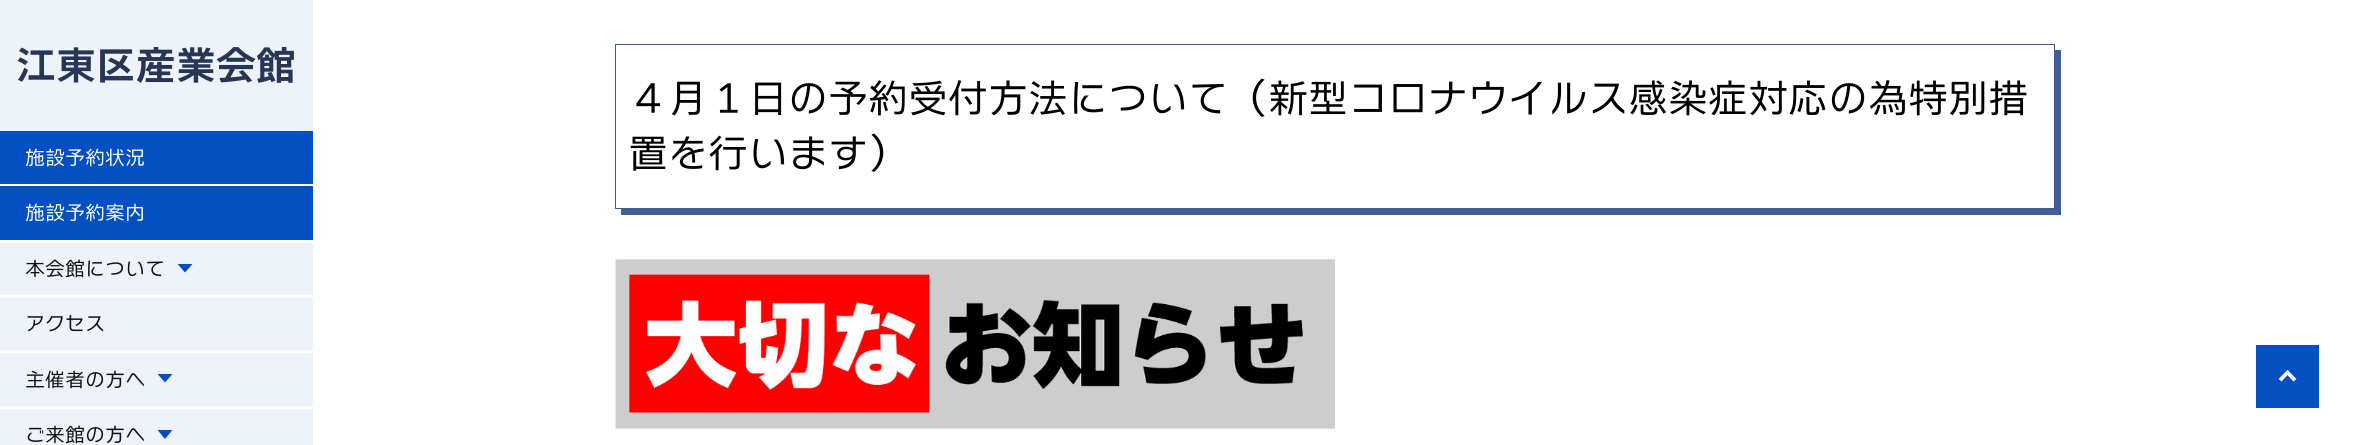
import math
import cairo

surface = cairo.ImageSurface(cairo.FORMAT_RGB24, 2356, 445)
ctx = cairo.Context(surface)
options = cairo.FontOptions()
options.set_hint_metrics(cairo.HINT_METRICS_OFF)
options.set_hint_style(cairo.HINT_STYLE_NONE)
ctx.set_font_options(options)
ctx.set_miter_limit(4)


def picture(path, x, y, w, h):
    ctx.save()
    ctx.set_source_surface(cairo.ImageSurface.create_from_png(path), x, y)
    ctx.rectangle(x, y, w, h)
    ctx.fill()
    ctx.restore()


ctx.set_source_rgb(1, 1, 1)
ctx.paint()
ctx.set_source_rgb(0.933, 0.953, 0.98)
ctx.rectangle(0, 0, 313, 445)
ctx.fill()
ctx.select_font_face("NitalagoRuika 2 Thin")
ctx.set_font_size(40)
ctx.set_source_rgb(0.157, 0.212, 0.333)
ctx.move_to(16, 80)
ctx.show_text("江東区産業会館")
ctx.set_source_rgb(0.016, 0.31, 0.757)
ctx.rectangle(0, 131, 313, 53)
ctx.fill()
ctx.set_source_rgb(1, 1, 1)
ctx.rectangle(0, 184, 313, 2)
ctx.fill()
ctx.select_font_face("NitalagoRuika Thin")
ctx.set_font_size(20)
ctx.move_to(25, 165)
ctx.show_text("施設予約状況")
ctx.set_source_rgb(0.016, 0.31, 0.757)
ctx.rectangle(0, 186, 313, 54)
ctx.fill()
ctx.set_source_rgb(1, 1, 1)
ctx.rectangle(0, 240, 313, 3)
ctx.fill()
ctx.move_to(25, 220)
ctx.show_text("施設予約案内")
ctx.rectangle(0, 295, 313, 3)
ctx.fill()
ctx.set_source_rgb(0.067, 0.067, 0.067)
ctx.move_to(25, 276)
ctx.show_text("本会館について")
ctx.set_source_rgb(0.016, 0.31, 0.757)
ctx.new_path()
ctx.move_to(177.5, 264)
ctx.line_to(192.5, 264)
ctx.line_to(185, 272.5)
ctx.close_path()
ctx.fill()
ctx.set_source_rgb(1, 1, 1)
ctx.rectangle(0, 350, 313, 3)
ctx.fill()
ctx.set_source_rgb(0.067, 0.067, 0.067)
ctx.move_to(25, 331)
ctx.show_text("アクセス")
ctx.set_source_rgb(1, 1, 1)
ctx.rectangle(0, 406, 313, 3)
ctx.fill()
ctx.set_source_rgb(0.067, 0.067, 0.067)
ctx.move_to(25, 387)
ctx.show_text("主催者の方へ")
ctx.set_source_rgb(0.016, 0.31, 0.757)
ctx.new_path()
ctx.move_to(157.5, 374)
ctx.line_to(172.5, 374)
ctx.line_to(165, 382.5)
ctx.close_path()
ctx.fill()
ctx.set_source_rgb(0.067, 0.067, 0.067)
ctx.move_to(25, 442)
ctx.show_text("ご来館の方へ")
ctx.set_source_rgb(0.016, 0.31, 0.757)
ctx.new_path()
ctx.move_to(157.5, 430)
ctx.line_to(172.5, 430)
ctx.line_to(165, 439)
ctx.close_path()
ctx.fill()
ctx.set_source_rgb(0.255, 0.369, 0.576)
ctx.new_path()
ctx.move_to(621, 209)
ctx.line_to(621, 215)
ctx.line_to(2061, 215)
ctx.line_to(2061, 50)
ctx.line_to(2055, 50)
ctx.line_to(2055, 209)
ctx.close_path()
ctx.fill()
ctx.rectangle(615.5, 44.5, 1439, 164)
ctx.set_line_width(1)
ctx.stroke()
ctx.set_font_size(40)
ctx.set_source_rgb(0, 0, 0)
ctx.move_to(628, 113)
ctx.show_text("４月１日の予約受付方法について（新型コロナウイルス感染症対応の為特別措")
ctx.move_to(628, 168)
ctx.show_text("置を行います）")
picture("img1.png", 615, 258, 720, 171)
ctx.set_source_rgb(0.016, 0.31, 0.757)
ctx.rectangle(2256, 345, 63, 63)
ctx.fill()
ctx.set_source_rgb(1, 1, 1)
ctx.new_path()
ctx.move_to(2278.5, 379)
ctx.line_to(2287.5, 370)
ctx.line_to(2290, 372.5)
ctx.line_to(2281.5, 381.5)
ctx.close_path()
ctx.fill()
ctx.new_path()
ctx.move_to(2285, 372.5)
ctx.line_to(2287.5, 370)
ctx.line_to(2296.5, 379)
ctx.line_to(2293.5, 381.5)
ctx.close_path()
ctx.fill()
surface.write_to_png("page.png")
